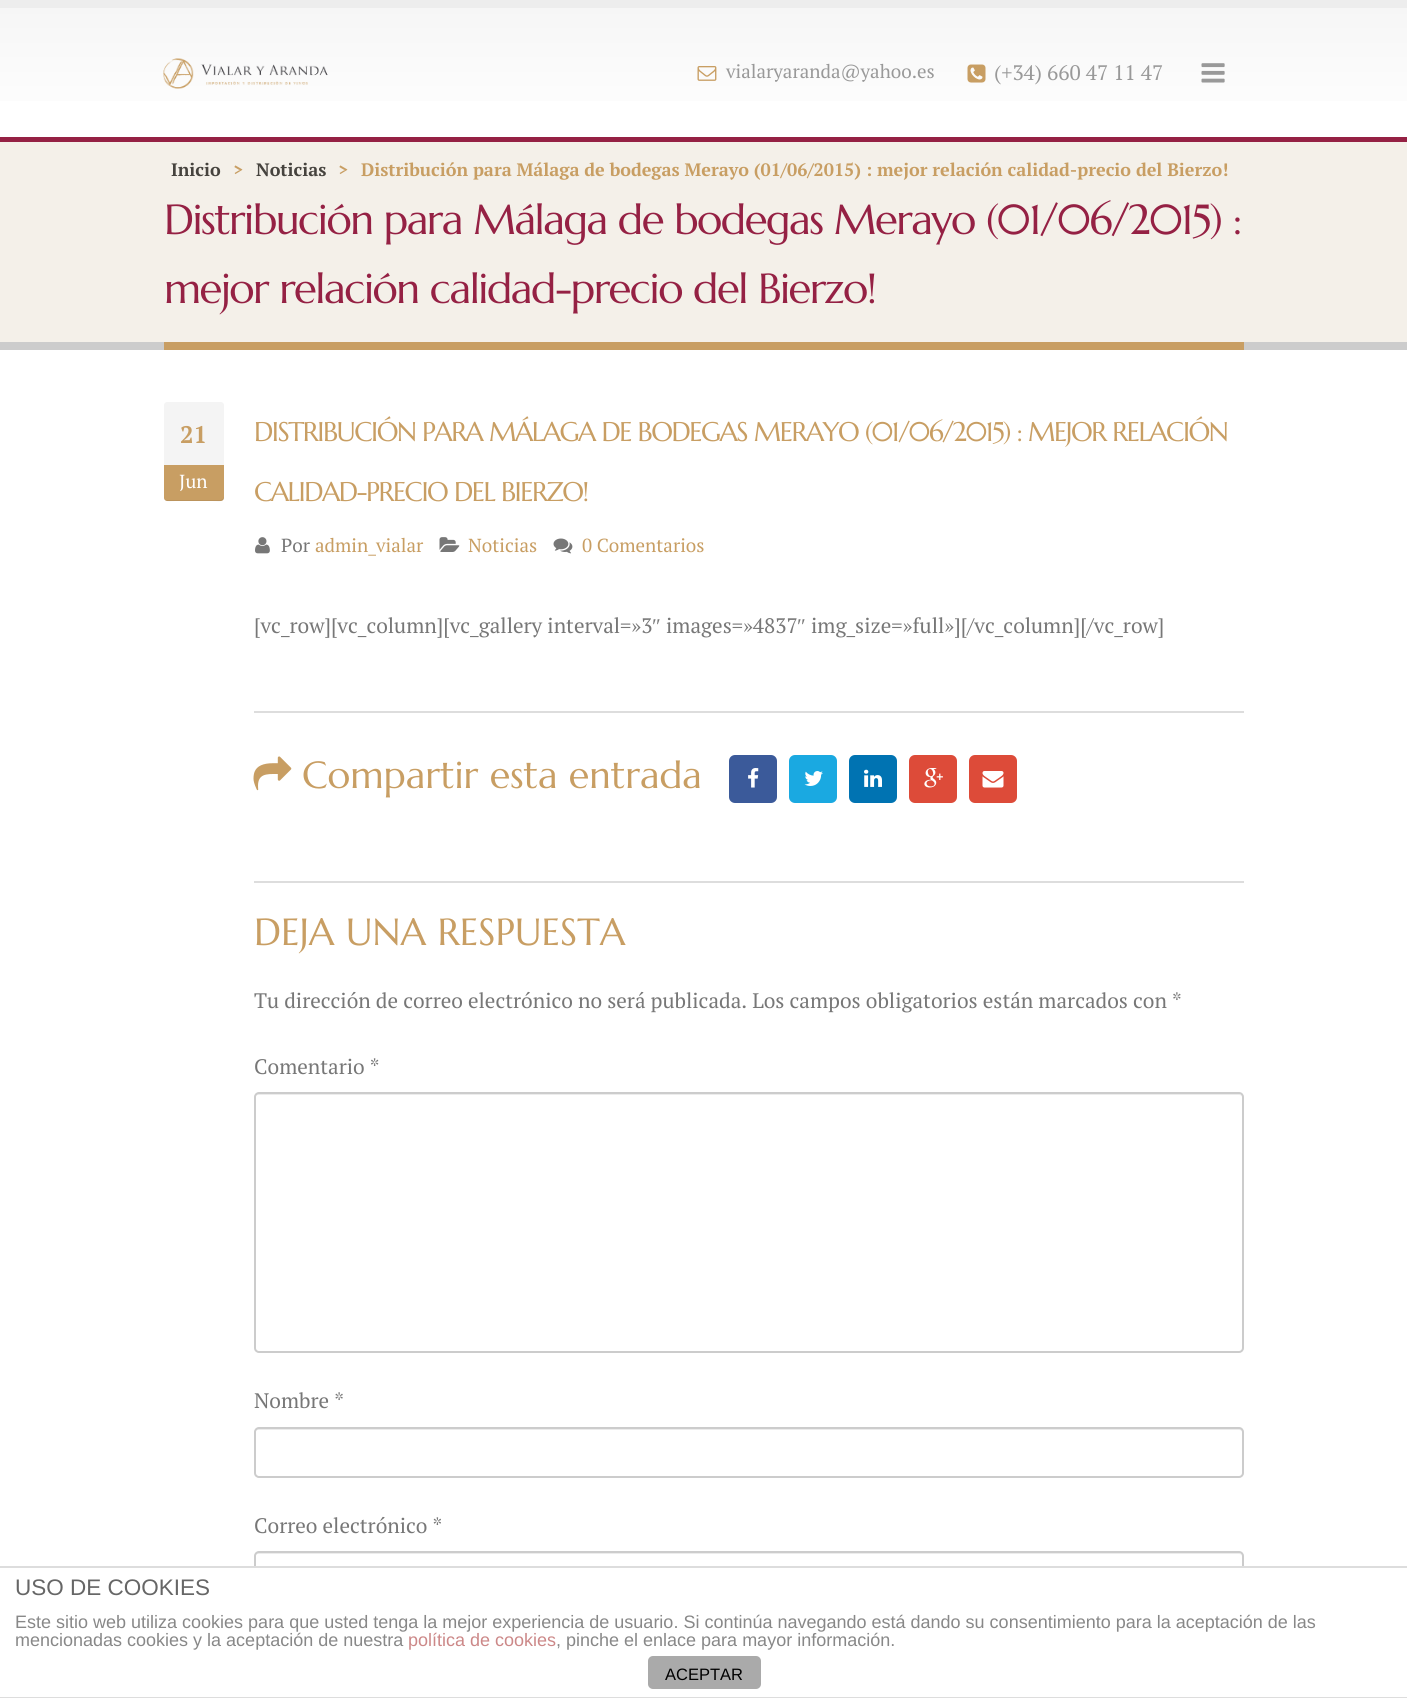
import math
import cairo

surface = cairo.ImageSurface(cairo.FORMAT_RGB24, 1407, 1698)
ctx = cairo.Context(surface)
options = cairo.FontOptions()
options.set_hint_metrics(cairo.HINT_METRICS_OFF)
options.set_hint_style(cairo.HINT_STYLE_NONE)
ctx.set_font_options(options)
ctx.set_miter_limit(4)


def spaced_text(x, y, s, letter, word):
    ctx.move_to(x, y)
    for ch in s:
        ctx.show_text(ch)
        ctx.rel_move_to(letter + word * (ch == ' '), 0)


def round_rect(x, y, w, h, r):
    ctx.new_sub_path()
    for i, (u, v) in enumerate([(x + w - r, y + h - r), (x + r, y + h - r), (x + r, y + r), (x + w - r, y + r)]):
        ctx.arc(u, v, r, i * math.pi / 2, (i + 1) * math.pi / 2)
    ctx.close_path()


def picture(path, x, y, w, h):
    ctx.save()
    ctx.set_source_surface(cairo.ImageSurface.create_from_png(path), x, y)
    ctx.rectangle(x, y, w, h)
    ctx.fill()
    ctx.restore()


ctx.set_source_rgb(1, 1, 1)
ctx.paint()
gradient = cairo.LinearGradient(704, 7.5, 704, 137)
gradient.add_color_stop_rgba(0, 0.965, 0.965, 0.965, 1)
gradient.add_color_stop_rgba(1, 1, 1, 1, 1)
ctx.set_source(gradient)
ctx.rectangle(0, 8, 1407, 93)
ctx.fill()
ctx.set_source_rgb(0.929, 0.929, 0.929)
ctx.rectangle(0, 0, 1407, 8)
ctx.fill()
picture("img1.png", 163, 58, 165, 31)
picture("img2.png", 697, 66, 20, 15)
ctx.select_font_face("PT Serif")
ctx.set_font_size(18.9)
ctx.set_source_rgb(0.6, 0.6, 0.6)
ctx.move_to(726, 78)
ctx.show_text("vialaryaranda@yahoo.es")
picture("img3.png", 967, 64, 19, 19)
ctx.set_font_size(21)
ctx.move_to(994, 80)
ctx.show_text("(+34) 660 47 11 47")
picture("img4.png", 1201, 63, 24, 20)
ctx.set_source_rgb(0.957, 0.941, 0.914)
ctx.rectangle(0, 142, 1407, 200)
ctx.fill()
ctx.set_source_rgb(0.584, 0.129, 0.267)
ctx.rectangle(0, 137, 1407, 5)
ctx.fill()
ctx.set_source_rgb(0.8, 0.8, 0.8)
ctx.rectangle(0, 342, 1407, 8)
ctx.fill()
ctx.select_font_face("PT Serif", cairo.FONT_SLANT_NORMAL, cairo.FONT_WEIGHT_BOLD)
ctx.set_font_size(18)
ctx.set_source_rgb(0.275, 0.263, 0.243)
ctx.move_to(171, 176)
ctx.show_text("Inicio")
ctx.set_source_rgb(0.784, 0.62, 0.388)
ctx.move_to(233, 176)
ctx.show_text(">")
ctx.set_source_rgb(0.275, 0.263, 0.243)
ctx.move_to(256, 176)
ctx.show_text("Noticias")
ctx.set_source_rgb(0.784, 0.62, 0.388)
ctx.move_to(338, 176)
ctx.show_text(">")
ctx.move_to(361, 176)
ctx.show_text("Distribución para Málaga de bodegas Merayo (01/06/2015) : mejor relación calidad-precio del Bierzo!")
ctx.rectangle(164, 342, 1080, 8)
ctx.fill()
ctx.select_font_face("Marcellus")
ctx.set_font_size(42)
ctx.set_source_rgb(0.584, 0.129, 0.267)
spaced_text(164, 234, "Distribución para Málaga de bodegas Merayo (01/06/2015) :", -1.5, 0)
spaced_text(164, 303, "mejor relación calidad-precio del Bierzo!", -1.5, 0)
ctx.set_source_rgb(0.957, 0.957, 0.957)
ctx.new_path()
ctx.move_to(167, 402)
ctx.line_to(221, 402)
ctx.curve_to(222.5, 402, 224, 403.5, 224, 405)
ctx.line_to(224, 465)
ctx.line_to(164, 465)
ctx.line_to(164, 405)
ctx.curve_to(164, 403.5, 165.5, 402, 167, 402)
ctx.close_path()
ctx.fill()
ctx.select_font_face("PT Serif", cairo.FONT_SLANT_NORMAL, cairo.FONT_WEIGHT_BOLD)
ctx.set_font_size(24)
ctx.set_source_rgb(0.784, 0.62, 0.388)
ctx.move_to(180, 443)
ctx.show_text("21")
ctx.new_path()
ctx.move_to(164, 465)
ctx.line_to(224, 465)
ctx.line_to(224, 498)
ctx.curve_to(224, 499.5, 222.5, 501, 221, 501)
ctx.line_to(167, 501)
ctx.curve_to(165.5, 501, 164, 499.5, 164, 498)
ctx.close_path()
ctx.fill()
ctx.set_source_rgba(0, 0, 0, 0.07)
ctx.new_path()
ctx.move_to(164, 496)
ctx.curve_to(164, 503, 169, 501, 176, 501)
ctx.line_to(212, 501)
ctx.curve_to(219, 501, 224, 503, 224, 496)
ctx.curve_to(224, 498, 222, 500, 220, 500)
ctx.line_to(166, 500)
ctx.curve_to(165, 500, 164, 498, 164, 496)
ctx.close_path()
ctx.fill()
ctx.select_font_face("PT Serif")
ctx.set_font_size(18.9)
ctx.set_source_rgb(1, 1, 1)
ctx.move_to(179, 488)
ctx.show_text("Jun")
ctx.select_font_face("Marcellus")
ctx.set_font_size(27)
ctx.set_source_rgb(0.784, 0.62, 0.388)
spaced_text(254, 441, "DISTRIBUCIÓN PARA MÁLAGA DE BODEGAS MERAYO (01/06/2015) : MEJOR RELACIÓN", -1.5, 0)
spaced_text(254, 501, "CALIDAD-PRECIO DEL BIERZO!", -1.5, 0)
picture("img5.png", 255, 537, 15, 17)
ctx.select_font_face("PT Serif")
ctx.set_font_size(18.9)
ctx.set_source_rgb(0.467, 0.467, 0.467)
ctx.move_to(281, 552)
ctx.show_text("Por")
ctx.set_source_rgb(0.784, 0.62, 0.388)
ctx.move_to(315, 552)
ctx.show_text("admin_vialar")
picture("img6.png", 439, 537, 21, 15)
ctx.move_to(468, 552)
ctx.show_text("Noticias")
picture("img7.png", 553, 538, 20, 16)
ctx.move_to(582, 552)
ctx.show_text("0 Comentarios")
ctx.set_font_size(21)
ctx.set_source_rgb(0.467, 0.467, 0.467)
ctx.move_to(254, 633)
ctx.show_text("[vc_row][vc_column][vc_gallery interval=»3")
ctx.select_font_face("Liberation Serif")
ctx.move_to(652, 633)
ctx.show_text("″")
ctx.select_font_face("PT Serif")
ctx.move_to(666, 633)
ctx.show_text("images=»4837")
ctx.select_font_face("Liberation Serif")
ctx.move_to(797, 633)
ctx.show_text("″")
ctx.select_font_face("PT Serif")
ctx.move_to(811, 633)
ctx.show_text("img_size=»full»][/vc_column][/vc_row]")
ctx.set_source_rgb(0.867, 0.867, 0.867)
ctx.rectangle(254, 711, 990, 2)
ctx.fill()
picture("img8.png", 253, 756, 39, 35)
ctx.select_font_face("Marcellus")
ctx.set_font_size(37.75)
ctx.set_source_rgb(0.784, 0.62, 0.388)
ctx.move_to(302, 788)
ctx.show_text("Compartir esta entrada")
ctx.set_source_rgb(0.231, 0.353, 0.604)
round_rect(729, 755, 48, 48, 6)
ctx.fill()
picture("img9.png", 748, 768, 11, 20)
ctx.set_source_rgb(0.102, 0.663, 0.882)
round_rect(789, 755, 48, 48, 6)
ctx.fill()
picture("img10.png", 804, 771, 19, 15)
ctx.set_source_rgb(0, 0.451, 0.698)
round_rect(849, 755, 48, 48, 6)
ctx.fill()
picture("img11.png", 864, 769, 18, 18)
ctx.set_source_rgb(0.867, 0.294, 0.224)
round_rect(909, 755, 48, 48, 6)
ctx.fill()
picture("img12.png", 924, 768, 19, 20)
round_rect(969, 755, 48, 48, 6)
ctx.fill()
picture("img13.png", 982, 771, 22, 17)
ctx.set_source_rgb(0.867, 0.867, 0.867)
ctx.rectangle(254, 881, 990, 2)
ctx.fill()
ctx.set_source_rgb(0.784, 0.62, 0.388)
ctx.move_to(254, 945)
ctx.show_text("DEJA UNA RESPUESTA")
ctx.select_font_face("PT Serif")
ctx.set_font_size(21)
ctx.set_source_rgb(0.467, 0.467, 0.467)
ctx.move_to(254, 1008)
ctx.show_text("Tu dirección de correo electrónico no será publicada. Los campos obligatorios están marcados con *")
ctx.move_to(254, 1074)
ctx.show_text("Comentario *")
ctx.set_source_rgb(0.925, 0.925, 0.925)
ctx.new_path()
ctx.move_to(258, 1095)
ctx.line_to(1239, 1095)
ctx.curve_to(1241, 1095, 1242, 1096, 1242, 1098)
ctx.curve_to(1242, 1096, 1241, 1094, 1239, 1094)
ctx.line_to(258, 1094)
ctx.curve_to(256, 1094, 255, 1096, 255, 1098)
ctx.curve_to(255, 1096, 256, 1095, 258, 1095)
ctx.close_path()
ctx.fill()
round_rect(255, 1093, 988, 259, 4)
ctx.set_source_rgb(0.8, 0.8, 0.8)
ctx.stroke()
ctx.set_source_rgb(0.467, 0.467, 0.467)
ctx.move_to(254, 1408)
ctx.show_text("Nombre *")
ctx.set_source_rgb(0.925, 0.925, 0.925)
ctx.new_path()
ctx.move_to(258, 1430)
ctx.line_to(1239, 1430)
ctx.curve_to(1241, 1430, 1242, 1431, 1242, 1432)
ctx.curve_to(1242, 1430, 1241, 1428, 1239, 1428)
ctx.line_to(258, 1428)
ctx.curve_to(256, 1428, 255, 1430, 255, 1432)
ctx.curve_to(255, 1431, 256, 1430, 258, 1430)
ctx.close_path()
ctx.fill()
round_rect(255, 1428, 988, 49, 4)
ctx.set_source_rgb(0.8, 0.8, 0.8)
ctx.stroke()
ctx.set_source_rgb(0.467, 0.467, 0.467)
ctx.move_to(254, 1533)
ctx.show_text("Correo electrónico *")
ctx.set_source_rgb(0.925, 0.925, 0.925)
ctx.new_path()
ctx.move_to(258, 1554)
ctx.line_to(1239, 1554)
ctx.curve_to(1241, 1554, 1242, 1555, 1242, 1557)
ctx.curve_to(1242, 1555, 1241, 1553, 1239, 1553)
ctx.line_to(258, 1553)
ctx.curve_to(256, 1553, 255, 1555, 255, 1557)
ctx.curve_to(255, 1555, 256, 1554, 258, 1554)
ctx.close_path()
ctx.fill()
round_rect(255, 1552, 988, 49, 4)
ctx.set_source_rgb(0.8, 0.8, 0.8)
ctx.stroke()
ctx.set_source_rgb(1, 1, 1)
ctx.rectangle(254, 1568, 990, 34)
ctx.fill()
ctx.set_source_rgb(0.867, 0.867, 0.867)
ctx.rectangle(0, 1566, 1407, 2)
ctx.fill()
ctx.rectangle(0, 1697, 1407, 1)
ctx.fill()
ctx.select_font_face("Liberation Sans")
ctx.set_font_size(22.5)
ctx.set_source_rgb(0.4, 0.4, 0.4)
ctx.move_to(15, 1595)
ctx.show_text("USO DE COOKIES")
ctx.set_font_size(18)
ctx.set_source_rgb(0.533, 0.533, 0.533)
ctx.move_to(15, 1628)
ctx.show_text("Este sitio web utiliza cookies para que usted tenga la mejor experiencia de usuario. Si continúa navegando está dando su consentimiento para la aceptación de las")
ctx.move_to(15, 1646)
ctx.show_text("mencionadas cookies y la aceptación de nuestra")
ctx.set_source_rgb(0.8, 0.533, 0.533)
ctx.move_to(408, 1646)
ctx.show_text("política de cookies")
ctx.set_source_rgb(0.533, 0.533, 0.533)
ctx.move_to(556, 1646)
ctx.show_text(", pinche el enlace para mayor información.")
ctx.set_source_rgb(0.667, 0.667, 0.667)
round_rect(648, 1656, 113, 33, 5)
ctx.fill()
ctx.set_font_size(16.5)
ctx.set_source_rgb(0, 0, 0)
ctx.move_to(665, 1680)
ctx.show_text("ACEPTAR")
surface.write_to_png("page.png")
